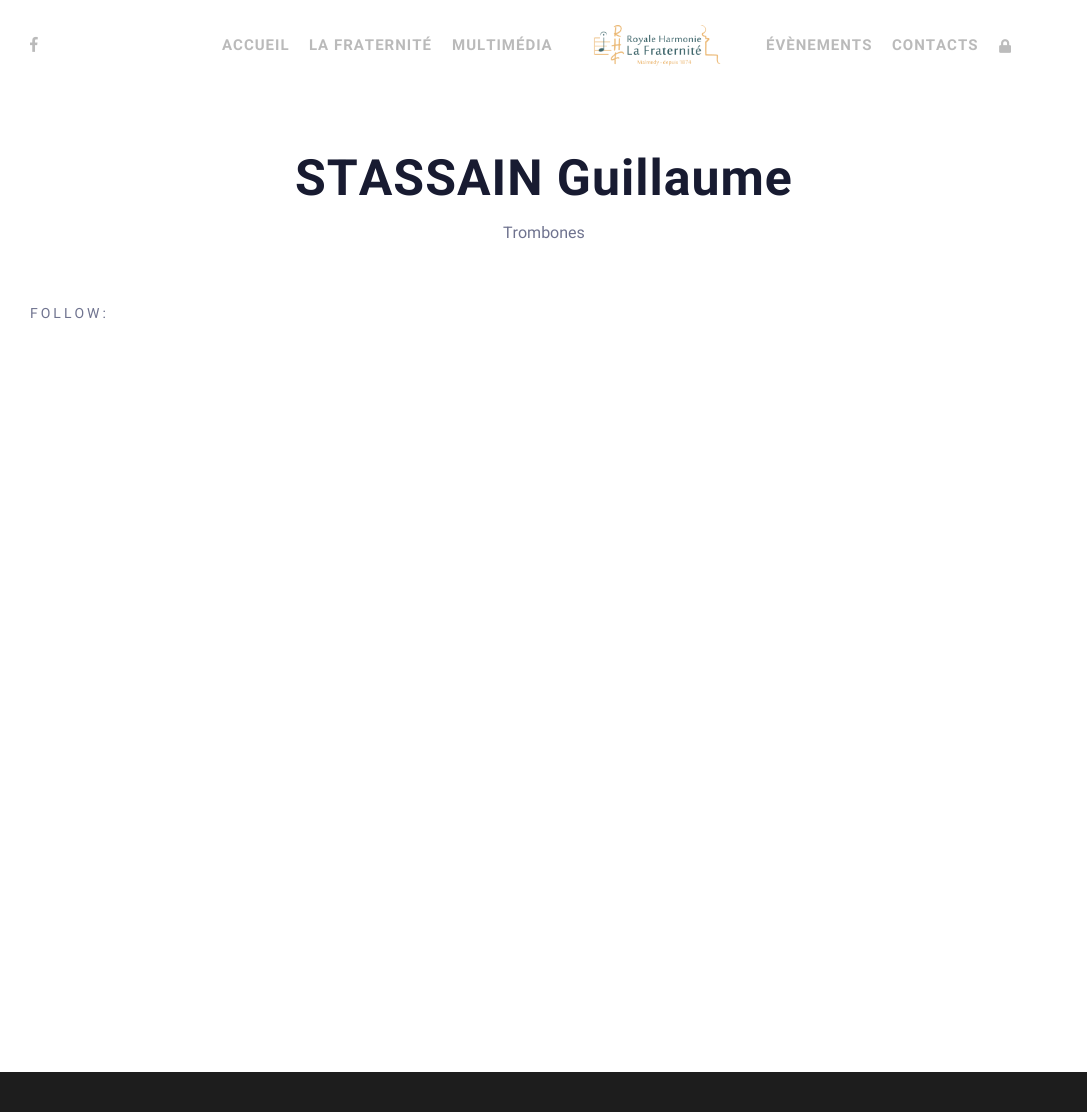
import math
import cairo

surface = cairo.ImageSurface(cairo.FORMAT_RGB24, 1087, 1112)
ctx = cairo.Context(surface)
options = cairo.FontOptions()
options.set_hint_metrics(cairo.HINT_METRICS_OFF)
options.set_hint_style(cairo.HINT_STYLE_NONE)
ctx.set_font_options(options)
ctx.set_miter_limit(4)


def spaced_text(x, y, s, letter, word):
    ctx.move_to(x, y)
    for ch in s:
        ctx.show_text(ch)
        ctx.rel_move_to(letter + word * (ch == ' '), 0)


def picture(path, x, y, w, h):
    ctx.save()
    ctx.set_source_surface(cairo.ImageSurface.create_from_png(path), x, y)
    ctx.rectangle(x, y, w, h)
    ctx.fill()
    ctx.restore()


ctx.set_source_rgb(1, 1, 1)
ctx.paint()
picture("img1.png", 30, 36, 8, 16)
ctx.select_font_face("Roboto", cairo.FONT_SLANT_NORMAL, cairo.FONT_WEIGHT_BOLD)
ctx.set_font_size(15)
ctx.set_source_rgb(0.729, 0.729, 0.729)
spaced_text(222, 50, "ACCUEIL", 1, 0)
spaced_text(309, 50, "LA FRATERNITÉ", 1, 0)
spaced_text(452, 50, "MULTIMÉDIA", 1, 0)
picture("img2.png", 593, 25, 128, 41)
spaced_text(766, 50, "ÉVÈNEMENTS", 1, 0)
spaced_text(892, 50, "CONTACTS", 1, 0)
picture("img3.png", 999, 39, 12, 14)
ctx.set_font_size(50)
ctx.set_source_rgb(0.094, 0.106, 0.192)
spaced_text(295, 195, "STASSAIN Guillaume", 1, 0)
ctx.select_font_face("Roboto")
ctx.set_font_size(16)
ctx.set_source_rgb(0.435, 0.451, 0.561)
ctx.move_to(503, 238)
ctx.show_text("Trombones")
ctx.set_font_size(14)
spaced_text(30, 318, "FOLLOW:", 3, 0)
ctx.set_source_rgb(0.114, 0.114, 0.114)
ctx.rectangle(0, 1072, 1087, 40)
ctx.fill()
surface.write_to_png("page.png")
